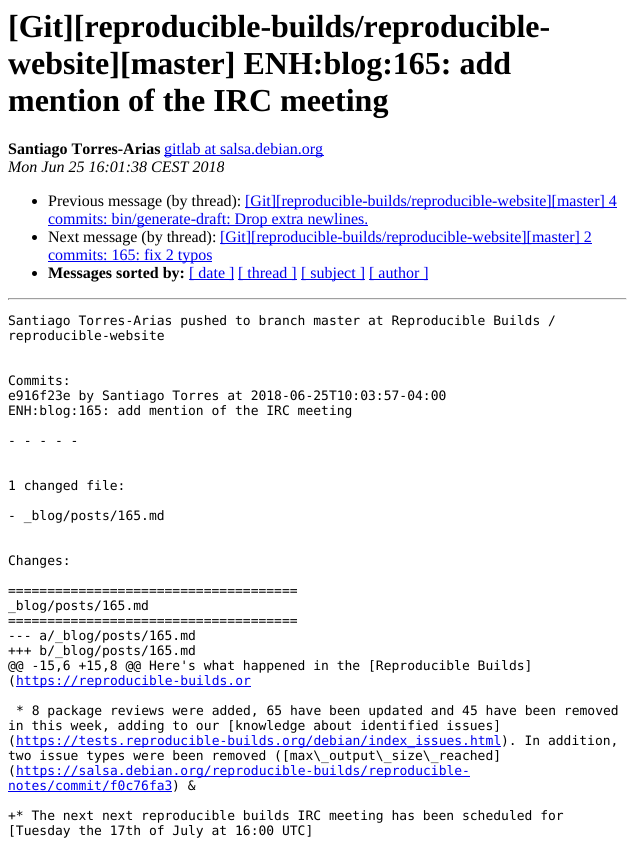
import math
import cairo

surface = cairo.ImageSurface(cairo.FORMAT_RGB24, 635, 847)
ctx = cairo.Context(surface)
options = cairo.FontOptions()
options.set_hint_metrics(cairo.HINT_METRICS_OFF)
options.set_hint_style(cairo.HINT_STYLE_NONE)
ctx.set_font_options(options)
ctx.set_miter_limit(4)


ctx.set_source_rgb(1, 1, 1)
ctx.paint()
ctx.select_font_face("Liberation Serif", cairo.FONT_SLANT_NORMAL, cairo.FONT_WEIGHT_BOLD)
ctx.set_font_size(32)
ctx.set_source_rgb(0, 0, 0)
ctx.move_to(8, 37)
ctx.show_text("[Git][reproducible-builds/reproducible-")
ctx.move_to(8, 74)
ctx.show_text("website][master] ENH:blog:165: add")
ctx.move_to(8, 111)
ctx.show_text("mention of the IRC meeting")
ctx.set_font_size(16)
ctx.move_to(8, 154)
ctx.show_text("Santiago Torres-Arias")
ctx.set_source_rgb(0, 0, 0.933)
ctx.rectangle(164, 155, 160, 1)
ctx.fill()
ctx.select_font_face("Liberation Serif")
ctx.move_to(164, 154)
ctx.show_text("gitlab at salsa.debian.org")
ctx.select_font_face("Liberation Serif", cairo.FONT_SLANT_ITALIC)
ctx.set_source_rgb(0, 0, 0)
ctx.move_to(8, 172)
ctx.show_text("Mon Jun 25 16:01:38 CEST 2018")
ctx.new_path()
ctx.arc(34.5, 201.5, 2.5, 0, 2 * math.pi)
ctx.fill()
ctx.select_font_face("Liberation Serif")
ctx.move_to(48, 206)
ctx.show_text("Previous message (by thread):")
ctx.set_source_rgb(0, 0, 0.933)
ctx.rectangle(245, 207, 372, 1)
ctx.fill()
ctx.move_to(245, 206)
ctx.show_text("[Git][reproducible-builds/reproducible-website][master] 4")
ctx.rectangle(48, 225, 320, 1)
ctx.fill()
ctx.move_to(48, 224)
ctx.show_text("commits: bin/generate-draft: Drop extra newlines.")
ctx.set_source_rgb(0, 0, 0)
ctx.new_path()
ctx.arc(34.5, 237.5, 2.5, 0, 2 * math.pi)
ctx.fill()
ctx.move_to(48, 242)
ctx.show_text("Next message (by thread):")
ctx.set_source_rgb(0, 0, 0.933)
ctx.rectangle(220, 243, 372, 1)
ctx.fill()
ctx.move_to(220, 242)
ctx.show_text("[Git][reproducible-builds/reproducible-website][master] 2")
ctx.rectangle(48, 261, 164, 1)
ctx.fill()
ctx.move_to(48, 260)
ctx.show_text("commits: 165: fix 2 typos")
ctx.set_source_rgb(0, 0, 0)
ctx.new_path()
ctx.arc(34.5, 273.5, 2.5, 0, 2 * math.pi)
ctx.fill()
ctx.select_font_face("Liberation Serif", cairo.FONT_SLANT_NORMAL, cairo.FONT_WEIGHT_BOLD)
ctx.move_to(48, 278)
ctx.show_text("Messages sorted by:")
ctx.set_source_rgb(0, 0, 0.933)
ctx.rectangle(189, 279, 45, 1)
ctx.fill()
ctx.select_font_face("Liberation Serif")
ctx.move_to(189, 278)
ctx.show_text("[ date ]")
ctx.rectangle(238, 279, 59, 1)
ctx.fill()
ctx.move_to(238, 278)
ctx.show_text("[ thread ]")
ctx.rectangle(301, 279, 64, 1)
ctx.fill()
ctx.move_to(301, 278)
ctx.show_text("[ subject ]")
ctx.rectangle(369, 279, 59, 1)
ctx.fill()
ctx.move_to(369, 278)
ctx.show_text("[ author ]")
ctx.set_source_rgb(0.624, 0.624, 0.624)
ctx.rectangle(8, 298, 619, 1)
ctx.fill()
ctx.set_source_rgb(0.933, 0.933, 0.933)
ctx.rectangle(626, 298, 1, 2)
ctx.fill()
ctx.rectangle(8, 299, 619, 1)
ctx.fill()
ctx.set_source_rgb(0.624, 0.624, 0.624)
ctx.rectangle(8, 298, 1, 2)
ctx.fill()
ctx.select_font_face("DejaVu Sans Mono")
ctx.set_font_size(13)
ctx.set_source_rgb(0, 0, 0)
ctx.move_to(8, 325)
ctx.show_text("Santiago Torres-Arias pushed to branch master at Reproducible Builds /")
ctx.move_to(8, 340)
ctx.show_text("reproducible-website")
ctx.move_to(8, 385)
ctx.show_text("Commits:")
ctx.move_to(8, 400)
ctx.show_text("e916f23e by Santiago Torres at 2018-06-25T10:03:57-04:00")
ctx.move_to(8, 415)
ctx.show_text("ENH:blog:165: add mention of the IRC meeting")
ctx.move_to(8, 445)
ctx.show_text("- - - - -")
ctx.move_to(8, 490)
ctx.show_text("1 changed file:")
ctx.move_to(8, 520)
ctx.show_text("- _blog/posts/165.md")
ctx.move_to(8, 565)
ctx.show_text("Changes:")
ctx.move_to(8, 595)
ctx.show_text("=====================================")
ctx.move_to(8, 610)
ctx.show_text("_blog/posts/165.md")
ctx.move_to(8, 625)
ctx.show_text("=====================================")
ctx.move_to(8, 640)
ctx.show_text("--- a/_blog/posts/165.md")
ctx.move_to(8, 655)
ctx.show_text("+++ b/_blog/posts/165.md")
ctx.move_to(8, 670)
ctx.show_text("@@ -15,6 +15,8 @@ Here's what happened in the [Reproducible Builds]")
ctx.move_to(8, 685)
ctx.show_text("(")
ctx.set_source_rgb(0, 0, 0.933)
ctx.rectangle(16, 686, 235, 1)
ctx.fill()
ctx.move_to(16, 685)
ctx.show_text("https://reproducible-builds.or")
ctx.set_source_rgb(0, 0, 0)
ctx.move_to(16, 715)
ctx.show_text("* 8 package reviews were added, 65 have been updated and 45 have been removed")
ctx.move_to(8, 730)
ctx.show_text("in this week, adding to our [knowledge about identified issues]")
ctx.move_to(8, 745)
ctx.show_text("(")
ctx.set_source_rgb(0, 0, 0.933)
ctx.rectangle(16, 746, 485, 1)
ctx.fill()
ctx.move_to(16, 745)
ctx.show_text("https://tests.reproducible-builds.org/debian/index_issues.html")
ctx.set_source_rgb(0, 0, 0)
ctx.move_to(501, 745)
ctx.show_text("). In addition,")
ctx.move_to(8, 760)
ctx.show_text("two issue types were been removed ([max\\_output\\_size\\_reached]")
ctx.move_to(8, 775)
ctx.show_text("(")
ctx.set_source_rgb(0, 0, 0.933)
ctx.rectangle(16, 776, 454, 1)
ctx.fill()
ctx.move_to(16, 775)
ctx.show_text("https://salsa.debian.org/reproducible-builds/reproducible-")
ctx.rectangle(8, 791, 164, 1)
ctx.fill()
ctx.move_to(8, 790)
ctx.show_text("notes/commit/f0c76fa3")
ctx.set_source_rgb(0, 0, 0)
ctx.move_to(172, 790)
ctx.show_text(") &")
ctx.move_to(8, 820)
ctx.show_text("+* The next next reproducible builds IRC meeting has been scheduled for")
ctx.move_to(8, 835)
ctx.show_text("[Tuesday the 17th of July at 16:00 UTC]")
surface.write_to_png("page.png")
